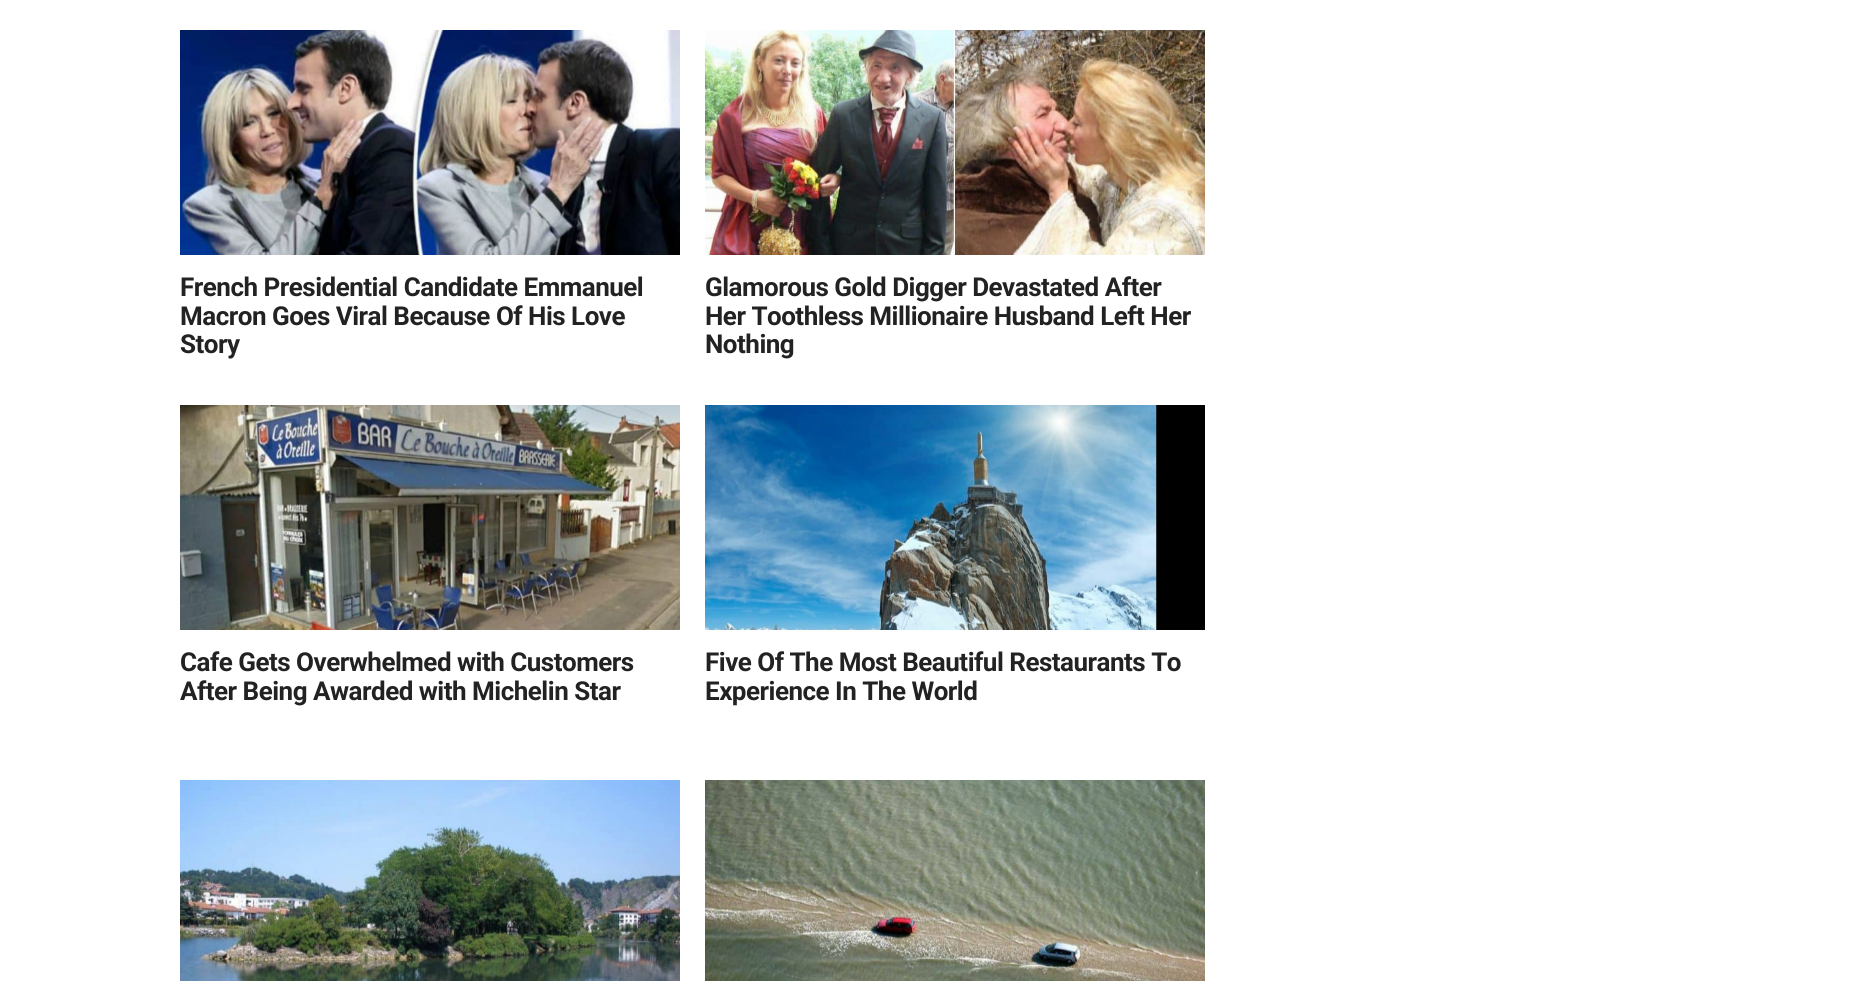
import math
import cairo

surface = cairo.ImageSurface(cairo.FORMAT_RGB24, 1859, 981)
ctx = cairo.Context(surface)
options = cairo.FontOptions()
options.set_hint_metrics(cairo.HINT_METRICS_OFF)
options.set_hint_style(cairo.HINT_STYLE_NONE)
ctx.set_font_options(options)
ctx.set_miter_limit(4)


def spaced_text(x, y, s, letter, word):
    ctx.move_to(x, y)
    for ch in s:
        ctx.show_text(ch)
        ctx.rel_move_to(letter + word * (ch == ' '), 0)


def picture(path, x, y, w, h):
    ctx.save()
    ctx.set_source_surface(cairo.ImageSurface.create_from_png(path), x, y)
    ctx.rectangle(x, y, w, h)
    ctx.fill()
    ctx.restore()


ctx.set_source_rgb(1, 1, 1)
ctx.paint()
picture("img1.png", 180, 30, 500, 225)
ctx.select_font_face("Roboto", cairo.FONT_SLANT_NORMAL, cairo.FONT_WEIGHT_BOLD)
ctx.set_font_size(26)
ctx.set_source_rgb(0.133, 0.133, 0.133)
spaced_text(180, 296, "French Presidential Candidate Emmanuel", -0.5, 0)
spaced_text(180, 325, "Macron Goes Viral Because Of His Love", -0.5, 0)
spaced_text(180, 353, "Story", -0.5, 0)
picture("img2.png", 705, 30, 500, 225)
spaced_text(705, 296, "Glamorous Gold Digger Devastated After", -0.5, 0)
spaced_text(705, 325, "Her Toothless Millionaire Husband Left Her", -0.5, 0)
spaced_text(705, 353, "Nothing", -0.5, 0)
picture("img3.png", 180, 405, 500, 225)
spaced_text(180, 671, "Cafe Gets Overwhelmed with Customers", -0.5, 0)
spaced_text(180, 700, "After Being Awarded with Michelin Star", -0.5, 0)
ctx.set_source_rgb(0, 0, 0)
ctx.rectangle(1156, 405, 49, 225)
ctx.fill()
picture("img4.png", 705, 405, 452, 225)
ctx.set_source_rgb(0.133, 0.133, 0.133)
spaced_text(705, 671, "Five Of The Most Beautiful Restaurants To", -0.5, 0)
spaced_text(705, 700, "Experience In The World", -0.5, 0)
picture("img5.png", 180, 780, 500, 201)
picture("img6.png", 705, 780, 500, 201)
surface.write_to_png("page.png")
